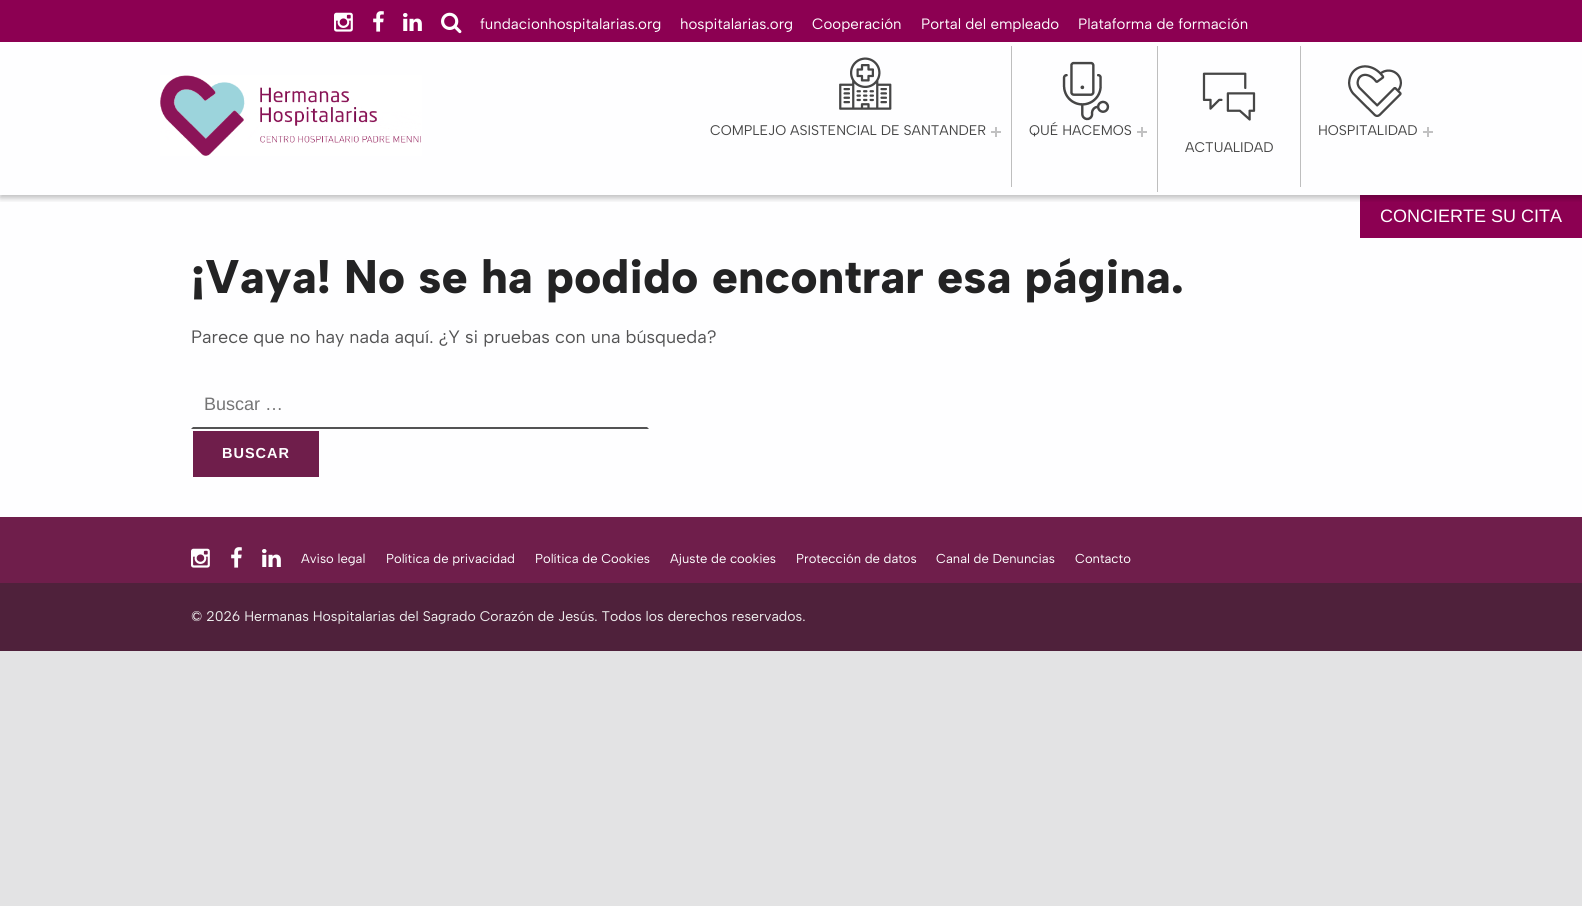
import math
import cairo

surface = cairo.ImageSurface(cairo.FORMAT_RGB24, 1582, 906)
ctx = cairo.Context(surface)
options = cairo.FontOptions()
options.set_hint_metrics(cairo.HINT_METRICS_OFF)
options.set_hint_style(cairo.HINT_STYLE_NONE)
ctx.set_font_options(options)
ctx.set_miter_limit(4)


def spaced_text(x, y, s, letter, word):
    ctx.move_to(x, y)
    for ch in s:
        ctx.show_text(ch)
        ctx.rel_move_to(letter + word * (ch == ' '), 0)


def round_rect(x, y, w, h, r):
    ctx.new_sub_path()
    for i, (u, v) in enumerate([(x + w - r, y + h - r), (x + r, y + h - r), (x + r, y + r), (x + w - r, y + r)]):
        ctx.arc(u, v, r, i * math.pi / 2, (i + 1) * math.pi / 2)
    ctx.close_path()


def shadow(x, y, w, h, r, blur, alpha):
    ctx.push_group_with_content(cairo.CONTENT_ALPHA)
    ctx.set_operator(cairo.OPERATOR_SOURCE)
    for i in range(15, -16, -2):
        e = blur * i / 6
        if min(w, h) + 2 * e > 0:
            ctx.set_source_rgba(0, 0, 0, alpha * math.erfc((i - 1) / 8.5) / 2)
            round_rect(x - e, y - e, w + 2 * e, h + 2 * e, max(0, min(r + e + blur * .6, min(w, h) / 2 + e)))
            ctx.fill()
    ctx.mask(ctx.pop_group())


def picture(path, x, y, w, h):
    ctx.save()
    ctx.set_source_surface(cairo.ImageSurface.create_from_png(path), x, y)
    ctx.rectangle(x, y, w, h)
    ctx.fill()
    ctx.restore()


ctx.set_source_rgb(0.89, 0.89, 0.894)
ctx.paint()
ctx.set_source_rgb(0.996, 0.996, 1)
ctx.rectangle(0, 42, 1582, 475)
ctx.fill()
ctx.set_source_rgb(0.549, 0, 0.322)
ctx.rectangle(1360, 195, 222, 43)
ctx.fill()
ctx.save()
ctx.rectangle(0, 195, 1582, 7)
ctx.clip()
ctx.set_source_rgb(0, 0, 0)
shadow(0, 3, 1582, 195, 0, 3, 0.26)
ctx.restore()
ctx.rectangle(0, 0, 1582, 42)
ctx.fill()
picture("img1.png", 334, 12, 19, 20)
picture("img2.png", 373, 11, 11, 21)
picture("img3.png", 403, 13, 19, 18)
picture("img4.png", 441, 12, 21, 22)
ctx.select_font_face("Albert Sans")
ctx.set_font_size(15)
ctx.set_source_rgb(0.996, 0.996, 1)
ctx.move_to(480, 29)
ctx.show_text("fundacionhospitalarias.org")
ctx.move_to(680, 29)
ctx.show_text("hospitalarias.org")
ctx.move_to(812, 29)
ctx.show_text("Cooperación")
ctx.move_to(921, 29)
ctx.show_text("Portal del empleado")
ctx.move_to(1078, 29)
ctx.show_text("Plataforma de formación")
picture("img5.png", 160, 75, 262, 81)
picture("img6.png", 839, 57, 53, 53)
ctx.set_font_size(14)
ctx.set_source_rgb(0.275, 0.275, 0.275)
ctx.move_to(710, 135)
ctx.show_text("COMPLEJO ASISTENCIAL DE SANTANDER")
ctx.set_source_rgb(0.757, 0.757, 0.761)
ctx.rectangle(991, 131, 10, 2)
ctx.fill()
ctx.rectangle(995, 127, 2, 10)
ctx.fill()
ctx.set_source_rgb(0.745, 0.745, 0.745)
ctx.rectangle(1011, 46, 1, 141)
ctx.fill()
picture("img7.png", 1062, 61, 48, 60)
ctx.set_source_rgb(0.275, 0.275, 0.275)
ctx.move_to(1029, 135)
ctx.show_text("QUÉ HACEMOS")
ctx.set_source_rgb(0.757, 0.757, 0.761)
ctx.rectangle(1137, 131, 10, 2)
ctx.fill()
ctx.rectangle(1141, 127, 2, 10)
ctx.fill()
ctx.set_source_rgb(0.745, 0.745, 0.745)
ctx.rectangle(1300, 46, 1, 141)
ctx.fill()
picture("img8.png", 1348, 65, 54, 52)
ctx.set_source_rgb(0.275, 0.275, 0.275)
ctx.move_to(1318, 135)
ctx.show_text("HOSPITALIDAD")
ctx.set_source_rgb(0.757, 0.757, 0.761)
ctx.rectangle(1423, 131, 10, 2)
ctx.fill()
ctx.rectangle(1427, 127, 2, 10)
ctx.fill()
ctx.set_source_rgb(0.745, 0.745, 0.745)
ctx.rectangle(1157, 46, 1, 146)
ctx.fill()
picture("img9.png", 1202, 72, 54, 49)
ctx.set_source_rgb(0.275, 0.275, 0.275)
ctx.move_to(1185, 152)
ctx.show_text("ACTUALIDAD")
ctx.select_font_face("Liberation Sans")
ctx.set_font_size(18)
ctx.set_source_rgb(0.996, 0.996, 1)
ctx.move_to(1380, 222)
ctx.show_text("CONCIERTE SU CITA")
ctx.select_font_face("Albert Sans ExtraBold")
ctx.set_font_size(47.1)
ctx.set_source_rgb(0.137, 0.137, 0.141)
ctx.move_to(191, 293)
ctx.show_text("¡Vaya! No se ha podido encontrar esa página.")
ctx.select_font_face("Albert Sans")
ctx.set_font_size(18)
ctx.set_source_rgb(0.325, 0.325, 0.329)
ctx.move_to(191, 343)
ctx.show_text("Parece que no hay nada aquí. ¿Y si pruebas con una búsqueda?")
ctx.new_path()
ctx.move_to(649, 429)
ctx.line_to(191, 429)
ctx.line_to(193, 427)
ctx.line_to(647, 427)
ctx.close_path()
ctx.fill()
ctx.select_font_face("Liberation Sans")
ctx.set_source_rgb(0.459, 0.459, 0.463)
ctx.move_to(204, 410)
ctx.show_text("Buscar …")
ctx.set_source_rgb(0.435, 0.118, 0.294)
ctx.rectangle(193, 431, 126, 46)
ctx.fill()
ctx.select_font_face("Liberation Sans", cairo.FONT_SLANT_NORMAL, cairo.FONT_WEIGHT_BOLD)
ctx.set_font_size(14.5)
ctx.set_source_rgb(0.996, 0.996, 1)
spaced_text(222, 458, "BUSCAR", 1, 0)
ctx.set_source_rgb(0.435, 0.118, 0.294)
ctx.rectangle(0, 517, 1582, 66)
ctx.fill()
picture("img10.png", 191, 548, 19, 20)
picture("img11.png", 231, 547, 11, 21)
picture("img12.png", 262, 549, 19, 18)
ctx.select_font_face("Albert Sans")
ctx.set_font_size(13)
ctx.set_source_rgb(0.996, 0.996, 1)
ctx.move_to(301, 563)
ctx.show_text("Aviso legal")
ctx.move_to(386, 563)
ctx.show_text("Política de privacidad")
ctx.move_to(535, 563)
ctx.show_text("Política de Cookies")
ctx.move_to(670, 563)
ctx.show_text("Ajuste de cookies")
ctx.move_to(796, 563)
ctx.show_text("Protección de datos")
ctx.move_to(936, 563)
ctx.show_text("Canal de Denuncias")
ctx.move_to(1075, 563)
ctx.show_text("Contacto")
ctx.set_source_rgb(0.31, 0.129, 0.231)
ctx.rectangle(0, 583, 1582, 68)
ctx.fill()
ctx.set_font_size(14)
ctx.set_source_rgb(0.933, 0.933, 0.933)
ctx.move_to(191, 621)
ctx.show_text("© 2026 Hermanas Hospitalarias del Sagrado Corazón de Jesús. Todos los derechos reservados.")
surface.write_to_png("page.png")
